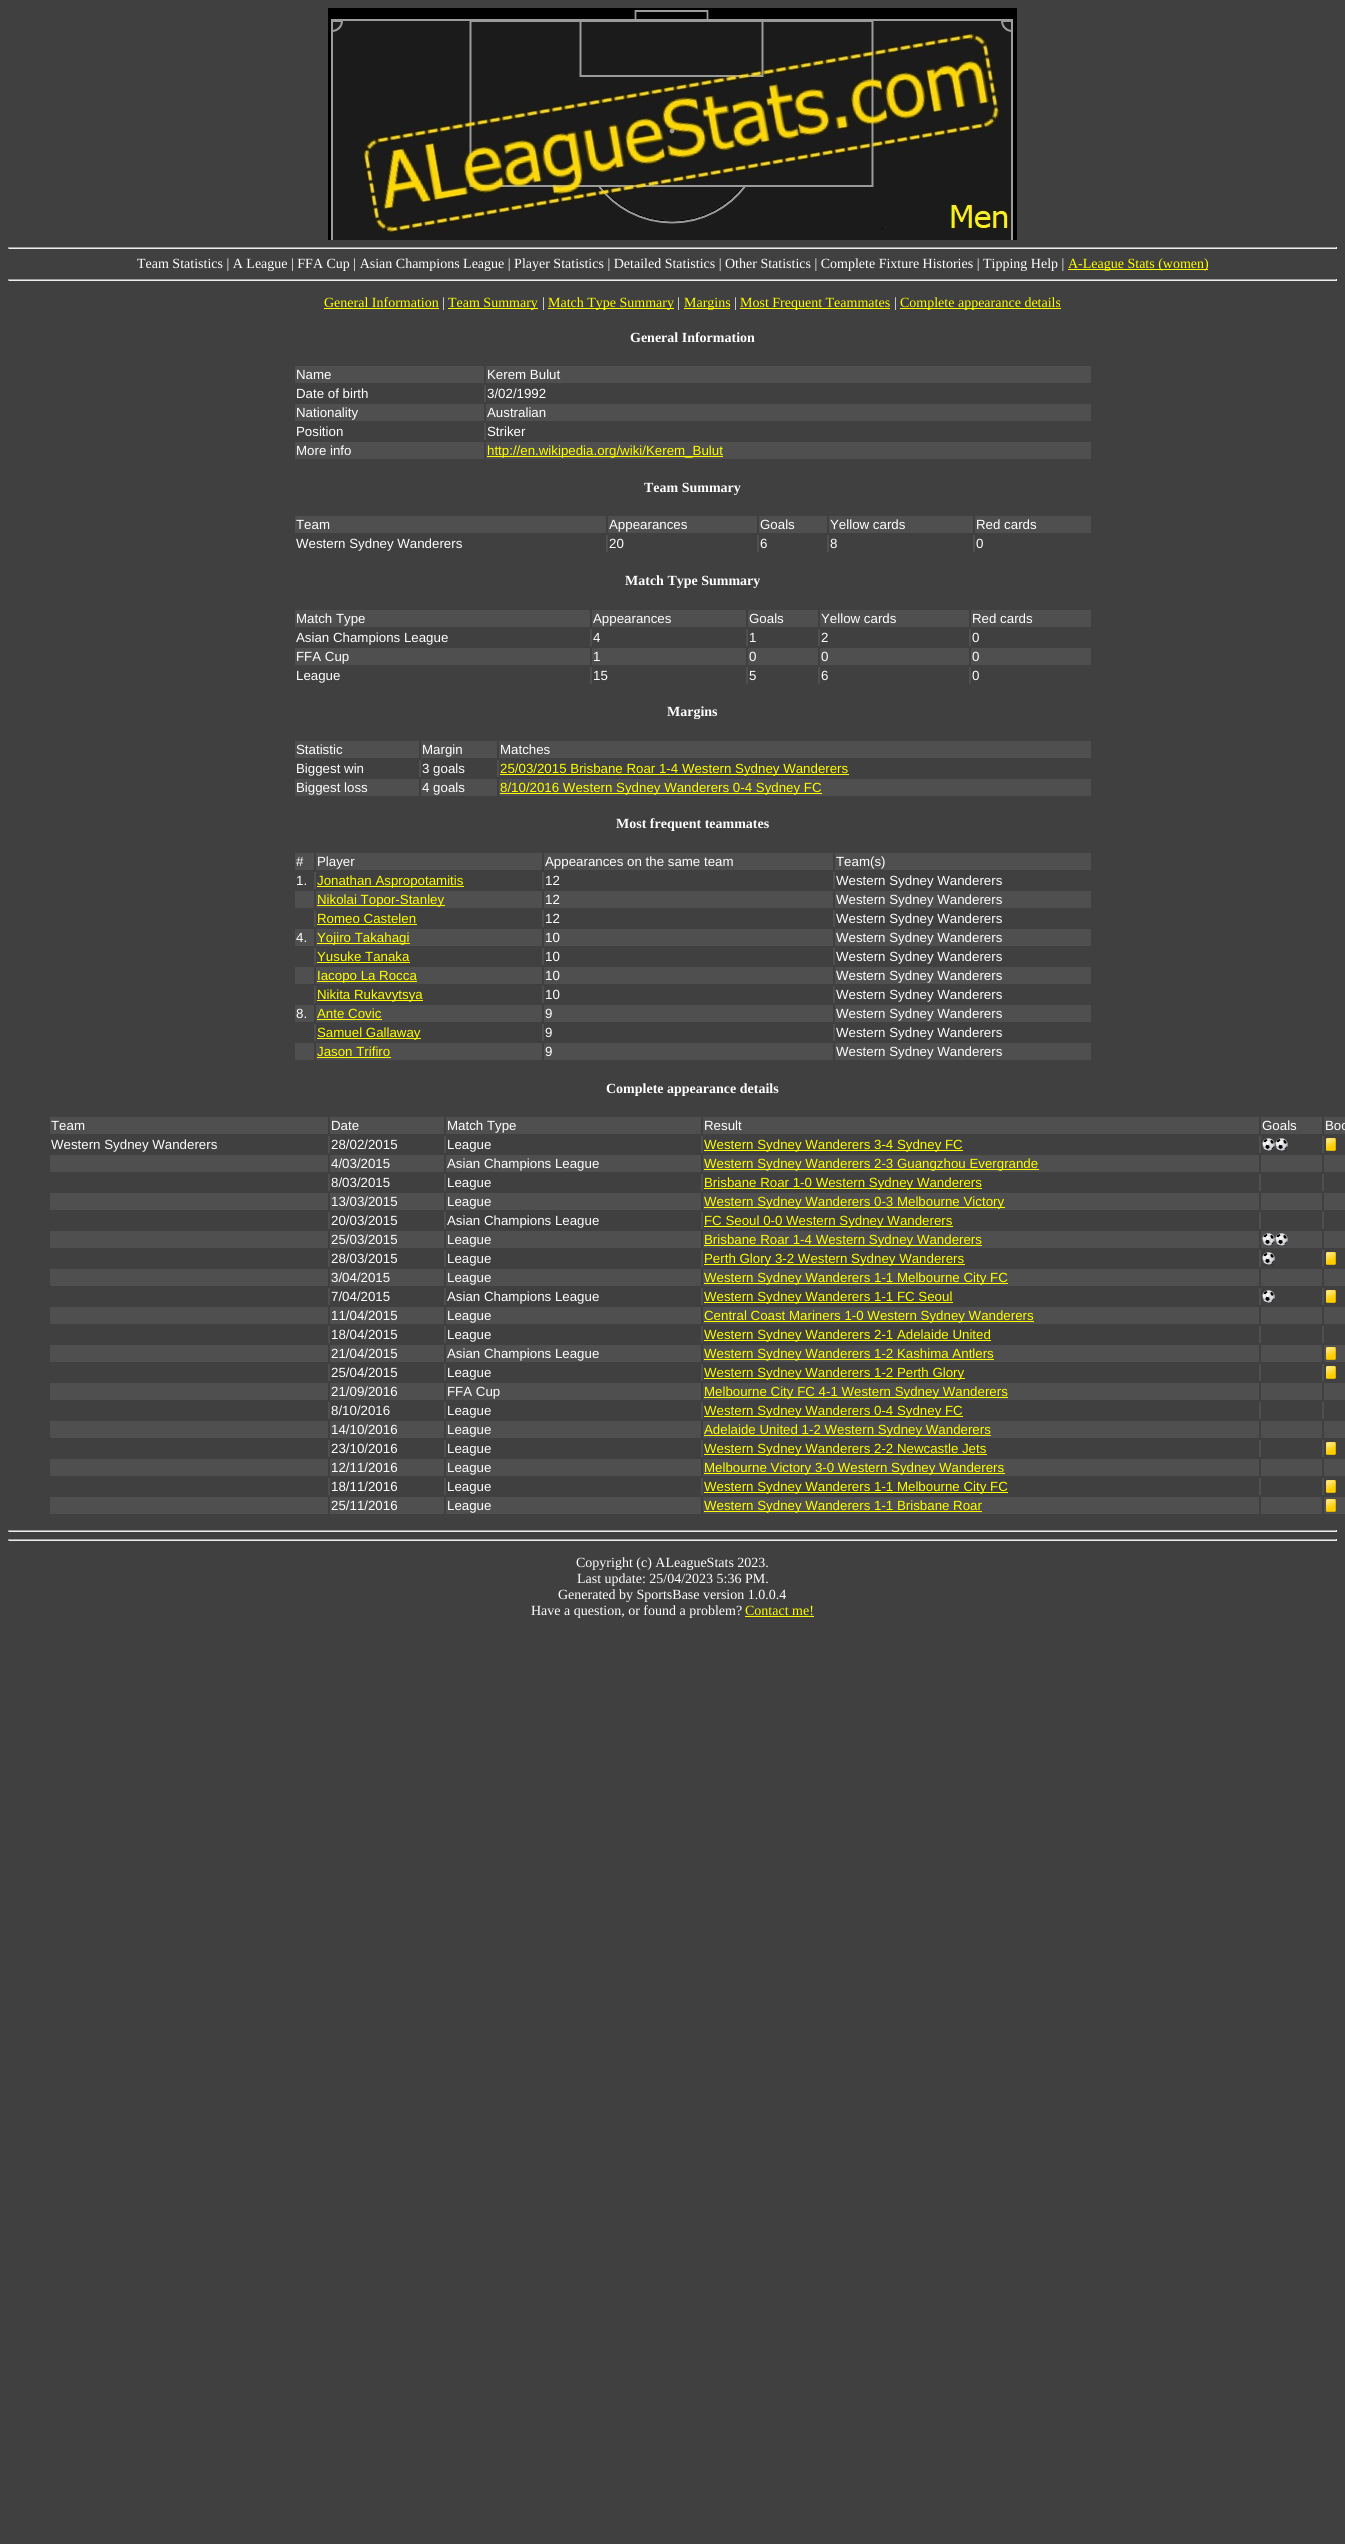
import math
import cairo

surface = cairo.ImageSurface(cairo.FORMAT_RGB24, 1345, 2544)
ctx = cairo.Context(surface)
options = cairo.FontOptions()
options.set_hint_metrics(cairo.HINT_METRICS_OFF)
options.set_hint_style(cairo.HINT_STYLE_NONE)
ctx.set_font_options(options)
ctx.set_miter_limit(4)


def picture(path, x, y, w, h):
    ctx.save()
    ctx.set_source_surface(cairo.ImageSurface.create_from_png(path), x, y)
    ctx.rectangle(x, y, w, h)
    ctx.fill()
    ctx.restore()


ctx.set_source_rgb(0.251, 0.251, 0.251)
ctx.paint()
picture("img1.png", 328, 8, 689, 232)
ctx.set_source_rgb(0.624, 0.624, 0.624)
ctx.rectangle(8, 247, 1329, 1)
ctx.fill()
ctx.set_source_rgb(0.933, 0.933, 0.933)
ctx.rectangle(1336, 247, 1, 2)
ctx.fill()
ctx.rectangle(8, 248, 1329, 1)
ctx.fill()
ctx.set_source_rgb(0.624, 0.624, 0.624)
ctx.rectangle(8, 247, 1, 2)
ctx.fill()
ctx.select_font_face("Liberation Serif")
ctx.set_font_size(14)
ctx.set_source_rgb(1, 1, 1)
ctx.move_to(137, 268)
ctx.show_text("Team Statistics | A League | FFA Cup | Asian Champions League | Player Statistics | Detailed Statistics | Other Statistics | Complete Fixture Histories | Tipping Help |")
ctx.set_source_rgb(1, 1, 0)
ctx.rectangle(1068, 269, 140, 1)
ctx.fill()
ctx.move_to(1068, 268)
ctx.show_text("A-League Stats (women)")
ctx.set_source_rgb(0.624, 0.624, 0.624)
ctx.rectangle(8, 279, 1329, 1)
ctx.fill()
ctx.set_source_rgb(0.933, 0.933, 0.933)
ctx.rectangle(1336, 279, 1, 2)
ctx.fill()
ctx.rectangle(8, 280, 1329, 1)
ctx.fill()
ctx.set_source_rgb(0.624, 0.624, 0.624)
ctx.rectangle(8, 279, 1, 2)
ctx.fill()
ctx.set_source_rgb(1, 1, 0)
ctx.move_to(324, 307)
ctx.show_text("General Information")
ctx.rectangle(324, 308, 115, 1)
ctx.fill()
ctx.set_source_rgb(1, 1, 1)
ctx.move_to(442, 307)
ctx.show_text("|")
ctx.set_source_rgb(1, 1, 0)
ctx.rectangle(448, 308, 90, 1)
ctx.fill()
ctx.move_to(448, 307)
ctx.show_text("Team Summary")
ctx.set_source_rgb(1, 1, 1)
ctx.move_to(542, 307)
ctx.show_text("|")
ctx.set_source_rgb(1, 1, 0)
ctx.rectangle(548, 308, 126, 1)
ctx.fill()
ctx.move_to(548, 307)
ctx.show_text("Match Type Summary")
ctx.set_source_rgb(1, 1, 1)
ctx.move_to(677, 307)
ctx.show_text("|")
ctx.set_source_rgb(1, 1, 0)
ctx.rectangle(684, 308, 46, 1)
ctx.fill()
ctx.move_to(684, 307)
ctx.show_text("Margins")
ctx.set_source_rgb(1, 1, 1)
ctx.move_to(734, 307)
ctx.show_text("|")
ctx.set_source_rgb(1, 1, 0)
ctx.rectangle(740, 308, 150, 1)
ctx.fill()
ctx.move_to(740, 307)
ctx.show_text("Most Frequent Teammates")
ctx.set_source_rgb(1, 1, 1)
ctx.move_to(894, 307)
ctx.show_text("|")
ctx.set_source_rgb(1, 1, 0)
ctx.rectangle(900, 308, 161, 1)
ctx.fill()
ctx.move_to(900, 307)
ctx.show_text("Complete appearance details")
ctx.select_font_face("Liberation Serif", cairo.FONT_SLANT_NORMAL, cairo.FONT_WEIGHT_BOLD)
ctx.set_source_rgb(1, 1, 1)
ctx.move_to(630, 342)
ctx.show_text("General Information")
ctx.set_source_rgb(0.31, 0.31, 0.31)
ctx.rectangle(295, 366, 189, 17)
ctx.fill()
ctx.select_font_face("Liberation Sans")
ctx.set_font_size(13.3)
ctx.set_source_rgb(1, 1, 1)
ctx.move_to(296, 379)
ctx.show_text("Name")
ctx.set_source_rgb(0.31, 0.31, 0.31)
ctx.rectangle(486, 366, 605, 17)
ctx.fill()
ctx.set_source_rgb(1, 1, 1)
ctx.move_to(487, 379)
ctx.show_text("Kerem Bulut")
ctx.set_source_rgb(0.31, 0.31, 0.31)
ctx.rectangle(484, 385, 2, 17)
ctx.fill()
ctx.set_source_rgb(1, 1, 1)
ctx.move_to(296, 398)
ctx.show_text("Date of birth")
ctx.move_to(487, 398)
ctx.show_text("3/02/1992")
ctx.set_source_rgb(0.31, 0.31, 0.31)
ctx.rectangle(295, 404, 189, 17)
ctx.fill()
ctx.set_source_rgb(1, 1, 1)
ctx.move_to(296, 417)
ctx.show_text("Nationality")
ctx.set_source_rgb(0.31, 0.31, 0.31)
ctx.rectangle(486, 404, 605, 17)
ctx.fill()
ctx.set_source_rgb(1, 1, 1)
ctx.move_to(487, 417)
ctx.show_text("Australian")
ctx.set_source_rgb(0.31, 0.31, 0.31)
ctx.rectangle(484, 423, 2, 17)
ctx.fill()
ctx.set_source_rgb(1, 1, 1)
ctx.move_to(296, 436)
ctx.show_text("Position")
ctx.move_to(487, 436)
ctx.show_text("Striker")
ctx.set_source_rgb(0.31, 0.31, 0.31)
ctx.rectangle(295, 442, 189, 17)
ctx.fill()
ctx.set_source_rgb(1, 1, 1)
ctx.move_to(296, 455)
ctx.show_text("More info")
ctx.set_source_rgb(0.31, 0.31, 0.31)
ctx.rectangle(486, 442, 605, 17)
ctx.fill()
ctx.set_source_rgb(1, 1, 0)
ctx.rectangle(487, 456, 236, 1)
ctx.fill()
ctx.move_to(487, 455)
ctx.show_text("http://en.wikipedia.org/wiki/Kerem_Bulut")
ctx.select_font_face("Liberation Serif", cairo.FONT_SLANT_NORMAL, cairo.FONT_WEIGHT_BOLD)
ctx.set_font_size(14)
ctx.set_source_rgb(1, 1, 1)
ctx.move_to(644, 492)
ctx.show_text("Team Summary")
ctx.set_source_rgb(0.31, 0.31, 0.31)
ctx.rectangle(295, 516, 311, 17)
ctx.fill()
ctx.select_font_face("Liberation Sans")
ctx.set_font_size(13.3)
ctx.set_source_rgb(1, 1, 1)
ctx.move_to(296, 529)
ctx.show_text("Team")
ctx.set_source_rgb(0.31, 0.31, 0.31)
ctx.rectangle(608, 516, 149, 17)
ctx.fill()
ctx.set_source_rgb(1, 1, 1)
ctx.move_to(609, 529)
ctx.show_text("Appearances")
ctx.set_source_rgb(0.31, 0.31, 0.31)
ctx.rectangle(759, 516, 68, 17)
ctx.fill()
ctx.set_source_rgb(1, 1, 1)
ctx.move_to(760, 529)
ctx.show_text("Goals")
ctx.set_source_rgb(0.31, 0.31, 0.31)
ctx.rectangle(829, 516, 144, 17)
ctx.fill()
ctx.set_source_rgb(1, 1, 1)
ctx.move_to(830, 529)
ctx.show_text("Yellow cards")
ctx.set_source_rgb(0.31, 0.31, 0.31)
ctx.rectangle(975, 516, 116, 17)
ctx.fill()
ctx.set_source_rgb(1, 1, 1)
ctx.move_to(976, 529)
ctx.show_text("Red cards")
ctx.set_source_rgb(0.31, 0.31, 0.31)
ctx.rectangle(606, 535, 369, 17)
ctx.fill()
ctx.set_source_rgb(1, 1, 1)
ctx.move_to(296, 548)
ctx.show_text("Western Sydney Wanderers")
ctx.set_source_rgb(0.251, 0.251, 0.251)
ctx.rectangle(608, 535, 149, 17)
ctx.fill()
ctx.set_source_rgb(1, 1, 1)
ctx.move_to(609, 548)
ctx.show_text("20")
ctx.set_source_rgb(0.251, 0.251, 0.251)
ctx.rectangle(759, 535, 68, 17)
ctx.fill()
ctx.set_source_rgb(1, 1, 1)
ctx.move_to(760, 548)
ctx.show_text("6")
ctx.set_source_rgb(0.251, 0.251, 0.251)
ctx.rectangle(829, 535, 144, 17)
ctx.fill()
ctx.set_source_rgb(1, 1, 1)
ctx.move_to(830, 548)
ctx.show_text("8")
ctx.move_to(976, 548)
ctx.show_text("0")
ctx.select_font_face("Liberation Serif", cairo.FONT_SLANT_NORMAL, cairo.FONT_WEIGHT_BOLD)
ctx.set_font_size(14)
ctx.move_to(625, 585)
ctx.show_text("Match Type Summary")
ctx.set_source_rgb(0.31, 0.31, 0.31)
ctx.rectangle(295, 610, 295, 17)
ctx.fill()
ctx.select_font_face("Liberation Sans")
ctx.set_font_size(13.3)
ctx.set_source_rgb(1, 1, 1)
ctx.move_to(296, 623)
ctx.show_text("Match Type")
ctx.set_source_rgb(0.31, 0.31, 0.31)
ctx.rectangle(592, 610, 154, 17)
ctx.fill()
ctx.set_source_rgb(1, 1, 1)
ctx.move_to(593, 623)
ctx.show_text("Appearances")
ctx.set_source_rgb(0.31, 0.31, 0.31)
ctx.rectangle(748, 610, 70, 17)
ctx.fill()
ctx.set_source_rgb(1, 1, 1)
ctx.move_to(749, 623)
ctx.show_text("Goals")
ctx.set_source_rgb(0.31, 0.31, 0.31)
ctx.rectangle(820, 610, 149, 17)
ctx.fill()
ctx.set_source_rgb(1, 1, 1)
ctx.move_to(821, 623)
ctx.show_text("Yellow cards")
ctx.set_source_rgb(0.31, 0.31, 0.31)
ctx.rectangle(971, 610, 120, 17)
ctx.fill()
ctx.set_source_rgb(1, 1, 1)
ctx.move_to(972, 623)
ctx.show_text("Red cards")
ctx.set_source_rgb(0.31, 0.31, 0.31)
ctx.rectangle(590, 629, 381, 17)
ctx.fill()
ctx.set_source_rgb(1, 1, 1)
ctx.move_to(296, 642)
ctx.show_text("Asian Champions League")
ctx.set_source_rgb(0.251, 0.251, 0.251)
ctx.rectangle(592, 629, 154, 17)
ctx.fill()
ctx.set_source_rgb(1, 1, 1)
ctx.move_to(593, 642)
ctx.show_text("4")
ctx.set_source_rgb(0.251, 0.251, 0.251)
ctx.rectangle(748, 629, 70, 17)
ctx.fill()
ctx.set_source_rgb(1, 1, 1)
ctx.move_to(749, 642)
ctx.show_text("1")
ctx.set_source_rgb(0.251, 0.251, 0.251)
ctx.rectangle(820, 629, 149, 17)
ctx.fill()
ctx.set_source_rgb(1, 1, 1)
ctx.move_to(821, 642)
ctx.show_text("2")
ctx.move_to(972, 642)
ctx.show_text("0")
ctx.set_source_rgb(0.31, 0.31, 0.31)
ctx.rectangle(295, 648, 295, 17)
ctx.fill()
ctx.set_source_rgb(1, 1, 1)
ctx.move_to(296, 661)
ctx.show_text("FFA Cup")
ctx.set_source_rgb(0.31, 0.31, 0.31)
ctx.rectangle(592, 648, 154, 17)
ctx.fill()
ctx.set_source_rgb(1, 1, 1)
ctx.move_to(593, 661)
ctx.show_text("1")
ctx.set_source_rgb(0.31, 0.31, 0.31)
ctx.rectangle(748, 648, 70, 17)
ctx.fill()
ctx.set_source_rgb(1, 1, 1)
ctx.move_to(749, 661)
ctx.show_text("0")
ctx.set_source_rgb(0.31, 0.31, 0.31)
ctx.rectangle(820, 648, 149, 17)
ctx.fill()
ctx.set_source_rgb(1, 1, 1)
ctx.move_to(821, 661)
ctx.show_text("0")
ctx.set_source_rgb(0.31, 0.31, 0.31)
ctx.rectangle(971, 648, 120, 17)
ctx.fill()
ctx.set_source_rgb(1, 1, 1)
ctx.move_to(972, 661)
ctx.show_text("0")
ctx.set_source_rgb(0.31, 0.31, 0.31)
ctx.rectangle(590, 667, 381, 17)
ctx.fill()
ctx.set_source_rgb(1, 1, 1)
ctx.move_to(296, 680)
ctx.show_text("League")
ctx.set_source_rgb(0.251, 0.251, 0.251)
ctx.rectangle(592, 667, 154, 17)
ctx.fill()
ctx.set_source_rgb(1, 1, 1)
ctx.move_to(593, 680)
ctx.show_text("15")
ctx.set_source_rgb(0.251, 0.251, 0.251)
ctx.rectangle(748, 667, 70, 17)
ctx.fill()
ctx.set_source_rgb(1, 1, 1)
ctx.move_to(749, 680)
ctx.show_text("5")
ctx.set_source_rgb(0.251, 0.251, 0.251)
ctx.rectangle(820, 667, 149, 17)
ctx.fill()
ctx.set_source_rgb(1, 1, 1)
ctx.move_to(821, 680)
ctx.show_text("6")
ctx.move_to(972, 680)
ctx.show_text("0")
ctx.select_font_face("Liberation Serif", cairo.FONT_SLANT_NORMAL, cairo.FONT_WEIGHT_BOLD)
ctx.set_font_size(14)
ctx.move_to(667, 716)
ctx.show_text("Margins")
ctx.set_source_rgb(0.31, 0.31, 0.31)
ctx.rectangle(295, 741, 124, 17)
ctx.fill()
ctx.select_font_face("Liberation Sans")
ctx.set_font_size(13.3)
ctx.set_source_rgb(1, 1, 1)
ctx.move_to(296, 754)
ctx.show_text("Statistic")
ctx.set_source_rgb(0.31, 0.31, 0.31)
ctx.rectangle(421, 741, 76, 17)
ctx.fill()
ctx.set_source_rgb(1, 1, 1)
ctx.move_to(422, 754)
ctx.show_text("Margin")
ctx.set_source_rgb(0.31, 0.31, 0.31)
ctx.rectangle(499, 741, 592, 17)
ctx.fill()
ctx.set_source_rgb(1, 1, 1)
ctx.move_to(500, 754)
ctx.show_text("Matches")
ctx.set_source_rgb(0.31, 0.31, 0.31)
ctx.rectangle(419, 760, 80, 17)
ctx.fill()
ctx.set_source_rgb(1, 1, 1)
ctx.move_to(296, 773)
ctx.show_text("Biggest win")
ctx.set_source_rgb(0.251, 0.251, 0.251)
ctx.rectangle(421, 760, 76, 17)
ctx.fill()
ctx.set_source_rgb(1, 1, 1)
ctx.move_to(422, 773)
ctx.show_text("3 goals")
ctx.set_source_rgb(1, 1, 0)
ctx.rectangle(500, 774, 349, 1)
ctx.fill()
ctx.move_to(500, 773)
ctx.show_text("25/03/2015 Brisbane Roar 1-4 Western Sydney Wanderers")
ctx.set_source_rgb(0.31, 0.31, 0.31)
ctx.rectangle(295, 779, 124, 17)
ctx.fill()
ctx.set_source_rgb(1, 1, 1)
ctx.move_to(296, 792)
ctx.show_text("Biggest loss")
ctx.set_source_rgb(0.31, 0.31, 0.31)
ctx.rectangle(421, 779, 76, 17)
ctx.fill()
ctx.set_source_rgb(1, 1, 1)
ctx.move_to(422, 792)
ctx.show_text("4 goals")
ctx.set_source_rgb(0.31, 0.31, 0.31)
ctx.rectangle(499, 779, 592, 17)
ctx.fill()
ctx.set_source_rgb(1, 1, 0)
ctx.rectangle(500, 793, 322, 1)
ctx.fill()
ctx.move_to(500, 792)
ctx.show_text("8/10/2016 Western Sydney Wanderers 0-4 Sydney FC")
ctx.select_font_face("Liberation Serif", cairo.FONT_SLANT_NORMAL, cairo.FONT_WEIGHT_BOLD)
ctx.set_font_size(14)
ctx.set_source_rgb(1, 1, 1)
ctx.move_to(616, 828)
ctx.show_text("Most frequent teammates")
ctx.set_source_rgb(0.31, 0.31, 0.31)
ctx.rectangle(295, 853, 19, 17)
ctx.fill()
ctx.select_font_face("Liberation Sans")
ctx.set_font_size(13.3)
ctx.set_source_rgb(1, 1, 1)
ctx.move_to(296, 866)
ctx.show_text("#")
ctx.set_source_rgb(0.31, 0.31, 0.31)
ctx.rectangle(316, 853, 226, 17)
ctx.fill()
ctx.set_source_rgb(1, 1, 1)
ctx.move_to(317, 866)
ctx.show_text("Player")
ctx.set_source_rgb(0.31, 0.31, 0.31)
ctx.rectangle(544, 853, 289, 17)
ctx.fill()
ctx.set_source_rgb(1, 1, 1)
ctx.move_to(545, 866)
ctx.show_text("Appearances on the same team")
ctx.set_source_rgb(0.31, 0.31, 0.31)
ctx.rectangle(835, 853, 256, 17)
ctx.fill()
ctx.set_source_rgb(1, 1, 1)
ctx.move_to(836, 866)
ctx.show_text("Team(s)")
ctx.set_source_rgb(0.31, 0.31, 0.31)
ctx.rectangle(314, 872, 521, 17)
ctx.fill()
ctx.set_source_rgb(1, 1, 1)
ctx.move_to(296, 885)
ctx.show_text("1.")
ctx.set_source_rgb(0.251, 0.251, 0.251)
ctx.rectangle(316, 872, 226, 17)
ctx.fill()
ctx.set_source_rgb(1, 1, 0)
ctx.rectangle(317, 886, 147, 1)
ctx.fill()
ctx.move_to(317, 885)
ctx.show_text("Jonathan Aspropotamitis")
ctx.set_source_rgb(0.251, 0.251, 0.251)
ctx.rectangle(544, 872, 289, 17)
ctx.fill()
ctx.set_source_rgb(1, 1, 1)
ctx.move_to(545, 885)
ctx.show_text("12")
ctx.move_to(836, 885)
ctx.show_text("Western Sydney Wanderers")
ctx.set_source_rgb(0.31, 0.31, 0.31)
ctx.rectangle(295, 891, 19, 17)
ctx.fill()
ctx.rectangle(316, 891, 226, 17)
ctx.fill()
ctx.set_source_rgb(1, 1, 0)
ctx.rectangle(317, 905, 128, 1)
ctx.fill()
ctx.move_to(317, 904)
ctx.show_text("Nikolai Topor-Stanley")
ctx.set_source_rgb(0.31, 0.31, 0.31)
ctx.rectangle(544, 891, 289, 17)
ctx.fill()
ctx.set_source_rgb(1, 1, 1)
ctx.move_to(545, 904)
ctx.show_text("12")
ctx.set_source_rgb(0.31, 0.31, 0.31)
ctx.rectangle(835, 891, 256, 17)
ctx.fill()
ctx.set_source_rgb(1, 1, 1)
ctx.move_to(836, 904)
ctx.show_text("Western Sydney Wanderers")
ctx.set_source_rgb(0.31, 0.31, 0.31)
ctx.rectangle(314, 910, 521, 17)
ctx.fill()
ctx.set_source_rgb(0.251, 0.251, 0.251)
ctx.rectangle(316, 910, 226, 17)
ctx.fill()
ctx.set_source_rgb(1, 1, 0)
ctx.move_to(317, 923)
ctx.show_text("Romeo Castelen")
ctx.rectangle(317, 924, 100, 1)
ctx.fill()
ctx.set_source_rgb(0.251, 0.251, 0.251)
ctx.rectangle(544, 910, 289, 17)
ctx.fill()
ctx.set_source_rgb(1, 1, 1)
ctx.move_to(545, 923)
ctx.show_text("12")
ctx.move_to(836, 923)
ctx.show_text("Western Sydney Wanderers")
ctx.set_source_rgb(0.31, 0.31, 0.31)
ctx.rectangle(295, 929, 19, 17)
ctx.fill()
ctx.set_source_rgb(1, 1, 1)
ctx.move_to(296, 942)
ctx.show_text("4.")
ctx.set_source_rgb(0.31, 0.31, 0.31)
ctx.rectangle(316, 929, 226, 17)
ctx.fill()
ctx.set_source_rgb(1, 1, 0)
ctx.rectangle(317, 943, 93, 1)
ctx.fill()
ctx.move_to(317, 942)
ctx.show_text("Yojiro Takahagi")
ctx.set_source_rgb(0.31, 0.31, 0.31)
ctx.rectangle(544, 929, 289, 17)
ctx.fill()
ctx.set_source_rgb(1, 1, 1)
ctx.move_to(545, 942)
ctx.show_text("10")
ctx.set_source_rgb(0.31, 0.31, 0.31)
ctx.rectangle(835, 929, 256, 17)
ctx.fill()
ctx.set_source_rgb(1, 1, 1)
ctx.move_to(836, 942)
ctx.show_text("Western Sydney Wanderers")
ctx.set_source_rgb(0.31, 0.31, 0.31)
ctx.rectangle(314, 948, 521, 17)
ctx.fill()
ctx.set_source_rgb(0.251, 0.251, 0.251)
ctx.rectangle(316, 948, 226, 17)
ctx.fill()
ctx.set_source_rgb(1, 1, 0)
ctx.move_to(317, 961)
ctx.show_text("Yusuke Tanaka")
ctx.rectangle(317, 962, 93, 1)
ctx.fill()
ctx.set_source_rgb(0.251, 0.251, 0.251)
ctx.rectangle(544, 948, 289, 17)
ctx.fill()
ctx.set_source_rgb(1, 1, 1)
ctx.move_to(545, 961)
ctx.show_text("10")
ctx.move_to(836, 961)
ctx.show_text("Western Sydney Wanderers")
ctx.set_source_rgb(0.31, 0.31, 0.31)
ctx.rectangle(295, 967, 19, 17)
ctx.fill()
ctx.rectangle(316, 967, 226, 17)
ctx.fill()
ctx.set_source_rgb(1, 1, 0)
ctx.rectangle(317, 981, 100, 1)
ctx.fill()
ctx.move_to(317, 980)
ctx.show_text("Iacopo La Rocca")
ctx.set_source_rgb(0.31, 0.31, 0.31)
ctx.rectangle(544, 967, 289, 17)
ctx.fill()
ctx.set_source_rgb(1, 1, 1)
ctx.move_to(545, 980)
ctx.show_text("10")
ctx.set_source_rgb(0.31, 0.31, 0.31)
ctx.rectangle(835, 967, 256, 17)
ctx.fill()
ctx.set_source_rgb(1, 1, 1)
ctx.move_to(836, 980)
ctx.show_text("Western Sydney Wanderers")
ctx.set_source_rgb(0.31, 0.31, 0.31)
ctx.rectangle(314, 986, 521, 17)
ctx.fill()
ctx.set_source_rgb(0.251, 0.251, 0.251)
ctx.rectangle(316, 986, 226, 17)
ctx.fill()
ctx.set_source_rgb(1, 1, 0)
ctx.rectangle(317, 1000, 106, 1)
ctx.fill()
ctx.move_to(317, 999)
ctx.show_text("Nikita Rukavytsya")
ctx.set_source_rgb(0.251, 0.251, 0.251)
ctx.rectangle(544, 986, 289, 17)
ctx.fill()
ctx.set_source_rgb(1, 1, 1)
ctx.move_to(545, 999)
ctx.show_text("10")
ctx.move_to(836, 999)
ctx.show_text("Western Sydney Wanderers")
ctx.set_source_rgb(0.31, 0.31, 0.31)
ctx.rectangle(295, 1005, 19, 17)
ctx.fill()
ctx.set_source_rgb(1, 1, 1)
ctx.move_to(296, 1018)
ctx.show_text("8.")
ctx.set_source_rgb(0.31, 0.31, 0.31)
ctx.rectangle(316, 1005, 226, 17)
ctx.fill()
ctx.set_source_rgb(1, 1, 0)
ctx.move_to(317, 1018)
ctx.show_text("Ante Covic")
ctx.rectangle(317, 1019, 65, 1)
ctx.fill()
ctx.set_source_rgb(0.31, 0.31, 0.31)
ctx.rectangle(544, 1005, 289, 17)
ctx.fill()
ctx.set_source_rgb(1, 1, 1)
ctx.move_to(545, 1018)
ctx.show_text("9")
ctx.set_source_rgb(0.31, 0.31, 0.31)
ctx.rectangle(835, 1005, 256, 17)
ctx.fill()
ctx.set_source_rgb(1, 1, 1)
ctx.move_to(836, 1018)
ctx.show_text("Western Sydney Wanderers")
ctx.set_source_rgb(0.31, 0.31, 0.31)
ctx.rectangle(314, 1024, 521, 17)
ctx.fill()
ctx.set_source_rgb(0.251, 0.251, 0.251)
ctx.rectangle(316, 1024, 226, 17)
ctx.fill()
ctx.set_source_rgb(1, 1, 0)
ctx.rectangle(317, 1038, 104, 1)
ctx.fill()
ctx.move_to(317, 1037)
ctx.show_text("Samuel Gallaway")
ctx.set_source_rgb(0.251, 0.251, 0.251)
ctx.rectangle(544, 1024, 289, 17)
ctx.fill()
ctx.set_source_rgb(1, 1, 1)
ctx.move_to(545, 1037)
ctx.show_text("9")
ctx.move_to(836, 1037)
ctx.show_text("Western Sydney Wanderers")
ctx.set_source_rgb(0.31, 0.31, 0.31)
ctx.rectangle(295, 1043, 19, 17)
ctx.fill()
ctx.rectangle(316, 1043, 226, 17)
ctx.fill()
ctx.set_source_rgb(1, 1, 0)
ctx.move_to(317, 1056)
ctx.show_text("Jason Trifiro")
ctx.rectangle(317, 1057, 74, 1)
ctx.fill()
ctx.set_source_rgb(0.31, 0.31, 0.31)
ctx.rectangle(544, 1043, 289, 17)
ctx.fill()
ctx.set_source_rgb(1, 1, 1)
ctx.move_to(545, 1056)
ctx.show_text("9")
ctx.set_source_rgb(0.31, 0.31, 0.31)
ctx.rectangle(835, 1043, 256, 17)
ctx.fill()
ctx.set_source_rgb(1, 1, 1)
ctx.move_to(836, 1056)
ctx.show_text("Western Sydney Wanderers")
ctx.select_font_face("Liberation Serif", cairo.FONT_SLANT_NORMAL, cairo.FONT_WEIGHT_BOLD)
ctx.set_font_size(14)
ctx.move_to(606, 1093)
ctx.show_text("Complete appearance details")
ctx.set_source_rgb(0.31, 0.31, 0.31)
ctx.rectangle(50, 1117, 278, 17)
ctx.fill()
ctx.select_font_face("Liberation Sans")
ctx.set_font_size(13.3)
ctx.set_source_rgb(1, 1, 1)
ctx.move_to(51, 1130)
ctx.show_text("Team")
ctx.set_source_rgb(0.31, 0.31, 0.31)
ctx.rectangle(330, 1117, 114, 17)
ctx.fill()
ctx.set_source_rgb(1, 1, 1)
ctx.move_to(331, 1130)
ctx.show_text("Date")
ctx.set_source_rgb(0.31, 0.31, 0.31)
ctx.rectangle(446, 1117, 255, 17)
ctx.fill()
ctx.set_source_rgb(1, 1, 1)
ctx.move_to(447, 1130)
ctx.show_text("Match Type")
ctx.set_source_rgb(0.31, 0.31, 0.31)
ctx.rectangle(703, 1117, 556, 17)
ctx.fill()
ctx.set_source_rgb(1, 1, 1)
ctx.move_to(704, 1130)
ctx.show_text("Result")
ctx.set_source_rgb(0.31, 0.31, 0.31)
ctx.rectangle(1261, 1117, 61, 17)
ctx.fill()
ctx.set_source_rgb(1, 1, 1)
ctx.move_to(1262, 1130)
ctx.show_text("Goals")
ctx.set_source_rgb(0.31, 0.31, 0.31)
ctx.rectangle(1324, 1117, 21, 17)
ctx.fill()
ctx.set_source_rgb(1, 1, 1)
ctx.move_to(1325, 1130)
ctx.show_text("Boo")
ctx.set_source_rgb(0.31, 0.31, 0.31)
ctx.rectangle(328, 1136, 996, 17)
ctx.fill()
ctx.set_source_rgb(1, 1, 1)
ctx.move_to(51, 1149)
ctx.show_text("Western Sydney Wanderers")
ctx.set_source_rgb(0.251, 0.251, 0.251)
ctx.rectangle(330, 1136, 114, 17)
ctx.fill()
ctx.set_source_rgb(1, 1, 1)
ctx.move_to(331, 1149)
ctx.show_text("28/02/2015")
ctx.set_source_rgb(0.251, 0.251, 0.251)
ctx.rectangle(446, 1136, 255, 17)
ctx.fill()
ctx.set_source_rgb(1, 1, 1)
ctx.move_to(447, 1149)
ctx.show_text("League")
ctx.set_source_rgb(0.251, 0.251, 0.251)
ctx.rectangle(703, 1136, 556, 17)
ctx.fill()
ctx.set_source_rgb(1, 1, 0)
ctx.rectangle(704, 1150, 259, 1)
ctx.fill()
ctx.move_to(704, 1149)
ctx.show_text("Western Sydney Wanderers 3-4 Sydney FC")
ctx.set_source_rgb(0.251, 0.251, 0.251)
ctx.rectangle(1261, 1136, 61, 17)
ctx.fill()
picture("img2.png", 1262, 1138, 13, 13)
picture("img2.png", 1275, 1138, 13, 13)
picture("img3.png", 1326, 1138, 10, 13)
ctx.set_source_rgb(0.31, 0.31, 0.31)
ctx.rectangle(50, 1155, 278, 17)
ctx.fill()
ctx.rectangle(330, 1155, 114, 17)
ctx.fill()
ctx.set_source_rgb(1, 1, 1)
ctx.move_to(331, 1168)
ctx.show_text("4/03/2015")
ctx.set_source_rgb(0.31, 0.31, 0.31)
ctx.rectangle(446, 1155, 255, 17)
ctx.fill()
ctx.set_source_rgb(1, 1, 1)
ctx.move_to(447, 1168)
ctx.show_text("Asian Champions League")
ctx.set_source_rgb(0.31, 0.31, 0.31)
ctx.rectangle(703, 1155, 556, 17)
ctx.fill()
ctx.set_source_rgb(1, 1, 0)
ctx.rectangle(704, 1169, 335, 1)
ctx.fill()
ctx.move_to(704, 1168)
ctx.show_text("Western Sydney Wanderers 2-3 Guangzhou Evergrande")
ctx.set_source_rgb(0.31, 0.31, 0.31)
ctx.rectangle(1261, 1155, 61, 17)
ctx.fill()
ctx.rectangle(1324, 1155, 21, 17)
ctx.fill()
ctx.rectangle(328, 1174, 996, 17)
ctx.fill()
ctx.set_source_rgb(0.251, 0.251, 0.251)
ctx.rectangle(330, 1174, 114, 17)
ctx.fill()
ctx.set_source_rgb(1, 1, 1)
ctx.move_to(331, 1187)
ctx.show_text("8/03/2015")
ctx.set_source_rgb(0.251, 0.251, 0.251)
ctx.rectangle(446, 1174, 255, 17)
ctx.fill()
ctx.set_source_rgb(1, 1, 1)
ctx.move_to(447, 1187)
ctx.show_text("League")
ctx.set_source_rgb(0.251, 0.251, 0.251)
ctx.rectangle(703, 1174, 556, 17)
ctx.fill()
ctx.set_source_rgb(1, 1, 0)
ctx.rectangle(704, 1188, 278, 1)
ctx.fill()
ctx.move_to(704, 1187)
ctx.show_text("Brisbane Roar 1-0 Western Sydney Wanderers")
ctx.set_source_rgb(0.251, 0.251, 0.251)
ctx.rectangle(1261, 1174, 61, 17)
ctx.fill()
ctx.set_source_rgb(0.31, 0.31, 0.31)
ctx.rectangle(50, 1193, 278, 17)
ctx.fill()
ctx.rectangle(330, 1193, 114, 17)
ctx.fill()
ctx.set_source_rgb(1, 1, 1)
ctx.move_to(331, 1206)
ctx.show_text("13/03/2015")
ctx.set_source_rgb(0.31, 0.31, 0.31)
ctx.rectangle(446, 1193, 255, 17)
ctx.fill()
ctx.set_source_rgb(1, 1, 1)
ctx.move_to(447, 1206)
ctx.show_text("League")
ctx.set_source_rgb(0.31, 0.31, 0.31)
ctx.rectangle(703, 1193, 556, 17)
ctx.fill()
ctx.set_source_rgb(1, 1, 0)
ctx.rectangle(704, 1207, 301, 1)
ctx.fill()
ctx.move_to(704, 1206)
ctx.show_text("Western Sydney Wanderers 0-3 Melbourne Victory")
ctx.set_source_rgb(0.31, 0.31, 0.31)
ctx.rectangle(1261, 1193, 61, 17)
ctx.fill()
ctx.rectangle(1324, 1193, 21, 17)
ctx.fill()
ctx.rectangle(328, 1212, 996, 17)
ctx.fill()
ctx.set_source_rgb(0.251, 0.251, 0.251)
ctx.rectangle(330, 1212, 114, 17)
ctx.fill()
ctx.set_source_rgb(1, 1, 1)
ctx.move_to(331, 1225)
ctx.show_text("20/03/2015")
ctx.set_source_rgb(0.251, 0.251, 0.251)
ctx.rectangle(446, 1212, 255, 17)
ctx.fill()
ctx.set_source_rgb(1, 1, 1)
ctx.move_to(447, 1225)
ctx.show_text("Asian Champions League")
ctx.set_source_rgb(0.251, 0.251, 0.251)
ctx.rectangle(703, 1212, 556, 17)
ctx.fill()
ctx.set_source_rgb(1, 1, 0)
ctx.rectangle(704, 1226, 249, 1)
ctx.fill()
ctx.move_to(704, 1225)
ctx.show_text("FC Seoul 0-0 Western Sydney Wanderers")
ctx.set_source_rgb(0.251, 0.251, 0.251)
ctx.rectangle(1261, 1212, 61, 17)
ctx.fill()
ctx.set_source_rgb(0.31, 0.31, 0.31)
ctx.rectangle(50, 1231, 278, 17)
ctx.fill()
ctx.rectangle(330, 1231, 114, 17)
ctx.fill()
ctx.set_source_rgb(1, 1, 1)
ctx.move_to(331, 1244)
ctx.show_text("25/03/2015")
ctx.set_source_rgb(0.31, 0.31, 0.31)
ctx.rectangle(446, 1231, 255, 17)
ctx.fill()
ctx.set_source_rgb(1, 1, 1)
ctx.move_to(447, 1244)
ctx.show_text("League")
ctx.set_source_rgb(0.31, 0.31, 0.31)
ctx.rectangle(703, 1231, 556, 17)
ctx.fill()
ctx.set_source_rgb(1, 1, 0)
ctx.rectangle(704, 1245, 278, 1)
ctx.fill()
ctx.move_to(704, 1244)
ctx.show_text("Brisbane Roar 1-4 Western Sydney Wanderers")
ctx.set_source_rgb(0.31, 0.31, 0.31)
ctx.rectangle(1261, 1231, 61, 17)
ctx.fill()
picture("img4.png", 1262, 1233, 13, 13)
picture("img4.png", 1275, 1233, 13, 13)
ctx.rectangle(1324, 1231, 21, 17)
ctx.fill()
ctx.rectangle(328, 1250, 996, 17)
ctx.fill()
ctx.set_source_rgb(0.251, 0.251, 0.251)
ctx.rectangle(330, 1250, 114, 17)
ctx.fill()
ctx.set_source_rgb(1, 1, 1)
ctx.move_to(331, 1263)
ctx.show_text("28/03/2015")
ctx.set_source_rgb(0.251, 0.251, 0.251)
ctx.rectangle(446, 1250, 255, 17)
ctx.fill()
ctx.set_source_rgb(1, 1, 1)
ctx.move_to(447, 1263)
ctx.show_text("League")
ctx.set_source_rgb(0.251, 0.251, 0.251)
ctx.rectangle(703, 1250, 556, 17)
ctx.fill()
ctx.set_source_rgb(1, 1, 0)
ctx.rectangle(704, 1264, 261, 1)
ctx.fill()
ctx.move_to(704, 1263)
ctx.show_text("Perth Glory 3-2 Western Sydney Wanderers")
ctx.set_source_rgb(0.251, 0.251, 0.251)
ctx.rectangle(1261, 1250, 61, 17)
ctx.fill()
picture("img2.png", 1262, 1252, 13, 13)
picture("img3.png", 1326, 1252, 10, 13)
ctx.set_source_rgb(0.31, 0.31, 0.31)
ctx.rectangle(50, 1269, 278, 17)
ctx.fill()
ctx.rectangle(330, 1269, 114, 17)
ctx.fill()
ctx.set_source_rgb(1, 1, 1)
ctx.move_to(331, 1282)
ctx.show_text("3/04/2015")
ctx.set_source_rgb(0.31, 0.31, 0.31)
ctx.rectangle(446, 1269, 255, 17)
ctx.fill()
ctx.set_source_rgb(1, 1, 1)
ctx.move_to(447, 1282)
ctx.show_text("League")
ctx.set_source_rgb(0.31, 0.31, 0.31)
ctx.rectangle(703, 1269, 556, 17)
ctx.fill()
ctx.set_source_rgb(1, 1, 0)
ctx.rectangle(704, 1283, 304, 1)
ctx.fill()
ctx.move_to(704, 1282)
ctx.show_text("Western Sydney Wanderers 1-1 Melbourne City FC")
ctx.set_source_rgb(0.31, 0.31, 0.31)
ctx.rectangle(1261, 1269, 61, 17)
ctx.fill()
ctx.rectangle(1324, 1269, 21, 17)
ctx.fill()
ctx.rectangle(328, 1288, 996, 17)
ctx.fill()
ctx.set_source_rgb(0.251, 0.251, 0.251)
ctx.rectangle(330, 1288, 114, 17)
ctx.fill()
ctx.set_source_rgb(1, 1, 1)
ctx.move_to(331, 1301)
ctx.show_text("7/04/2015")
ctx.set_source_rgb(0.251, 0.251, 0.251)
ctx.rectangle(446, 1288, 255, 17)
ctx.fill()
ctx.set_source_rgb(1, 1, 1)
ctx.move_to(447, 1301)
ctx.show_text("Asian Champions League")
ctx.set_source_rgb(0.251, 0.251, 0.251)
ctx.rectangle(703, 1288, 556, 17)
ctx.fill()
ctx.set_source_rgb(1, 1, 0)
ctx.rectangle(704, 1302, 249, 1)
ctx.fill()
ctx.move_to(704, 1301)
ctx.show_text("Western Sydney Wanderers 1-1 FC Seoul")
ctx.set_source_rgb(0.251, 0.251, 0.251)
ctx.rectangle(1261, 1288, 61, 17)
ctx.fill()
picture("img2.png", 1262, 1290, 13, 13)
picture("img3.png", 1326, 1290, 10, 13)
ctx.set_source_rgb(0.31, 0.31, 0.31)
ctx.rectangle(50, 1307, 278, 17)
ctx.fill()
ctx.rectangle(330, 1307, 114, 17)
ctx.fill()
ctx.set_source_rgb(1, 1, 1)
ctx.move_to(331, 1320)
ctx.show_text("11/04/2015")
ctx.set_source_rgb(0.31, 0.31, 0.31)
ctx.rectangle(446, 1307, 255, 17)
ctx.fill()
ctx.set_source_rgb(1, 1, 1)
ctx.move_to(447, 1320)
ctx.show_text("League")
ctx.set_source_rgb(0.31, 0.31, 0.31)
ctx.rectangle(703, 1307, 556, 17)
ctx.fill()
ctx.set_source_rgb(1, 1, 0)
ctx.rectangle(704, 1321, 330, 1)
ctx.fill()
ctx.move_to(704, 1320)
ctx.show_text("Central Coast Mariners 1-0 Western Sydney Wanderers")
ctx.set_source_rgb(0.31, 0.31, 0.31)
ctx.rectangle(1261, 1307, 61, 17)
ctx.fill()
ctx.rectangle(1324, 1307, 21, 17)
ctx.fill()
ctx.rectangle(328, 1326, 996, 17)
ctx.fill()
ctx.set_source_rgb(0.251, 0.251, 0.251)
ctx.rectangle(330, 1326, 114, 17)
ctx.fill()
ctx.set_source_rgb(1, 1, 1)
ctx.move_to(331, 1339)
ctx.show_text("18/04/2015")
ctx.set_source_rgb(0.251, 0.251, 0.251)
ctx.rectangle(446, 1326, 255, 17)
ctx.fill()
ctx.set_source_rgb(1, 1, 1)
ctx.move_to(447, 1339)
ctx.show_text("League")
ctx.set_source_rgb(0.251, 0.251, 0.251)
ctx.rectangle(703, 1326, 556, 17)
ctx.fill()
ctx.set_source_rgb(1, 1, 0)
ctx.rectangle(704, 1340, 287, 1)
ctx.fill()
ctx.move_to(704, 1339)
ctx.show_text("Western Sydney Wanderers 2-1 Adelaide United")
ctx.set_source_rgb(0.251, 0.251, 0.251)
ctx.rectangle(1261, 1326, 61, 17)
ctx.fill()
ctx.set_source_rgb(0.31, 0.31, 0.31)
ctx.rectangle(50, 1345, 278, 17)
ctx.fill()
ctx.rectangle(330, 1345, 114, 17)
ctx.fill()
ctx.set_source_rgb(1, 1, 1)
ctx.move_to(331, 1358)
ctx.show_text("21/04/2015")
ctx.set_source_rgb(0.31, 0.31, 0.31)
ctx.rectangle(446, 1345, 255, 17)
ctx.fill()
ctx.set_source_rgb(1, 1, 1)
ctx.move_to(447, 1358)
ctx.show_text("Asian Champions League")
ctx.set_source_rgb(0.31, 0.31, 0.31)
ctx.rectangle(703, 1345, 556, 17)
ctx.fill()
ctx.set_source_rgb(1, 1, 0)
ctx.rectangle(704, 1359, 290, 1)
ctx.fill()
ctx.move_to(704, 1358)
ctx.show_text("Western Sydney Wanderers 1-2 Kashima Antlers")
ctx.set_source_rgb(0.31, 0.31, 0.31)
ctx.rectangle(1261, 1345, 61, 17)
ctx.fill()
ctx.rectangle(1324, 1345, 21, 17)
ctx.fill()
picture("img5.png", 1326, 1347, 10, 13)
ctx.rectangle(328, 1364, 996, 17)
ctx.fill()
ctx.set_source_rgb(0.251, 0.251, 0.251)
ctx.rectangle(330, 1364, 114, 17)
ctx.fill()
ctx.set_source_rgb(1, 1, 1)
ctx.move_to(331, 1377)
ctx.show_text("25/04/2015")
ctx.set_source_rgb(0.251, 0.251, 0.251)
ctx.rectangle(446, 1364, 255, 17)
ctx.fill()
ctx.set_source_rgb(1, 1, 1)
ctx.move_to(447, 1377)
ctx.show_text("League")
ctx.set_source_rgb(0.251, 0.251, 0.251)
ctx.rectangle(703, 1364, 556, 17)
ctx.fill()
ctx.set_source_rgb(1, 1, 0)
ctx.rectangle(704, 1378, 261, 1)
ctx.fill()
ctx.move_to(704, 1377)
ctx.show_text("Western Sydney Wanderers 1-2 Perth Glory")
ctx.set_source_rgb(0.251, 0.251, 0.251)
ctx.rectangle(1261, 1364, 61, 17)
ctx.fill()
picture("img3.png", 1326, 1366, 10, 13)
ctx.set_source_rgb(0.31, 0.31, 0.31)
ctx.rectangle(50, 1383, 278, 17)
ctx.fill()
ctx.rectangle(330, 1383, 114, 17)
ctx.fill()
ctx.set_source_rgb(1, 1, 1)
ctx.move_to(331, 1396)
ctx.show_text("21/09/2016")
ctx.set_source_rgb(0.31, 0.31, 0.31)
ctx.rectangle(446, 1383, 255, 17)
ctx.fill()
ctx.set_source_rgb(1, 1, 1)
ctx.move_to(447, 1396)
ctx.show_text("FFA Cup")
ctx.set_source_rgb(0.31, 0.31, 0.31)
ctx.rectangle(703, 1383, 556, 17)
ctx.fill()
ctx.set_source_rgb(1, 1, 0)
ctx.rectangle(704, 1397, 304, 1)
ctx.fill()
ctx.move_to(704, 1396)
ctx.show_text("Melbourne City FC 4-1 Western Sydney Wanderers")
ctx.set_source_rgb(0.31, 0.31, 0.31)
ctx.rectangle(1261, 1383, 61, 17)
ctx.fill()
ctx.rectangle(1324, 1383, 21, 17)
ctx.fill()
ctx.rectangle(328, 1402, 996, 17)
ctx.fill()
ctx.set_source_rgb(0.251, 0.251, 0.251)
ctx.rectangle(330, 1402, 114, 17)
ctx.fill()
ctx.set_source_rgb(1, 1, 1)
ctx.move_to(331, 1415)
ctx.show_text("8/10/2016")
ctx.set_source_rgb(0.251, 0.251, 0.251)
ctx.rectangle(446, 1402, 255, 17)
ctx.fill()
ctx.set_source_rgb(1, 1, 1)
ctx.move_to(447, 1415)
ctx.show_text("League")
ctx.set_source_rgb(0.251, 0.251, 0.251)
ctx.rectangle(703, 1402, 556, 17)
ctx.fill()
ctx.set_source_rgb(1, 1, 0)
ctx.rectangle(704, 1416, 259, 1)
ctx.fill()
ctx.move_to(704, 1415)
ctx.show_text("Western Sydney Wanderers 0-4 Sydney FC")
ctx.set_source_rgb(0.251, 0.251, 0.251)
ctx.rectangle(1261, 1402, 61, 17)
ctx.fill()
ctx.set_source_rgb(0.31, 0.31, 0.31)
ctx.rectangle(50, 1421, 278, 17)
ctx.fill()
ctx.rectangle(330, 1421, 114, 17)
ctx.fill()
ctx.set_source_rgb(1, 1, 1)
ctx.move_to(331, 1434)
ctx.show_text("14/10/2016")
ctx.set_source_rgb(0.31, 0.31, 0.31)
ctx.rectangle(446, 1421, 255, 17)
ctx.fill()
ctx.set_source_rgb(1, 1, 1)
ctx.move_to(447, 1434)
ctx.show_text("League")
ctx.set_source_rgb(0.31, 0.31, 0.31)
ctx.rectangle(703, 1421, 556, 17)
ctx.fill()
ctx.set_source_rgb(1, 1, 0)
ctx.rectangle(704, 1435, 287, 1)
ctx.fill()
ctx.move_to(704, 1434)
ctx.show_text("Adelaide United 1-2 Western Sydney Wanderers")
ctx.set_source_rgb(0.31, 0.31, 0.31)
ctx.rectangle(1261, 1421, 61, 17)
ctx.fill()
ctx.rectangle(1324, 1421, 21, 17)
ctx.fill()
ctx.rectangle(328, 1440, 996, 17)
ctx.fill()
ctx.set_source_rgb(0.251, 0.251, 0.251)
ctx.rectangle(330, 1440, 114, 17)
ctx.fill()
ctx.set_source_rgb(1, 1, 1)
ctx.move_to(331, 1453)
ctx.show_text("23/10/2016")
ctx.set_source_rgb(0.251, 0.251, 0.251)
ctx.rectangle(446, 1440, 255, 17)
ctx.fill()
ctx.set_source_rgb(1, 1, 1)
ctx.move_to(447, 1453)
ctx.show_text("League")
ctx.set_source_rgb(0.251, 0.251, 0.251)
ctx.rectangle(703, 1440, 556, 17)
ctx.fill()
ctx.set_source_rgb(1, 1, 0)
ctx.rectangle(704, 1454, 283, 1)
ctx.fill()
ctx.move_to(704, 1453)
ctx.show_text("Western Sydney Wanderers 2-2 Newcastle Jets")
ctx.set_source_rgb(0.251, 0.251, 0.251)
ctx.rectangle(1261, 1440, 61, 17)
ctx.fill()
picture("img3.png", 1326, 1442, 10, 13)
ctx.set_source_rgb(0.31, 0.31, 0.31)
ctx.rectangle(50, 1459, 278, 17)
ctx.fill()
ctx.rectangle(330, 1459, 114, 17)
ctx.fill()
ctx.set_source_rgb(1, 1, 1)
ctx.move_to(331, 1472)
ctx.show_text("12/11/2016")
ctx.set_source_rgb(0.31, 0.31, 0.31)
ctx.rectangle(446, 1459, 255, 17)
ctx.fill()
ctx.set_source_rgb(1, 1, 1)
ctx.move_to(447, 1472)
ctx.show_text("League")
ctx.set_source_rgb(0.31, 0.31, 0.31)
ctx.rectangle(703, 1459, 556, 17)
ctx.fill()
ctx.set_source_rgb(1, 1, 0)
ctx.rectangle(704, 1473, 301, 1)
ctx.fill()
ctx.move_to(704, 1472)
ctx.show_text("Melbourne Victory 3-0 Western Sydney Wanderers")
ctx.set_source_rgb(0.31, 0.31, 0.31)
ctx.rectangle(1261, 1459, 61, 17)
ctx.fill()
ctx.rectangle(1324, 1459, 21, 17)
ctx.fill()
ctx.rectangle(328, 1478, 996, 17)
ctx.fill()
ctx.set_source_rgb(0.251, 0.251, 0.251)
ctx.rectangle(330, 1478, 114, 17)
ctx.fill()
ctx.set_source_rgb(1, 1, 1)
ctx.move_to(331, 1491)
ctx.show_text("18/11/2016")
ctx.set_source_rgb(0.251, 0.251, 0.251)
ctx.rectangle(446, 1478, 255, 17)
ctx.fill()
ctx.set_source_rgb(1, 1, 1)
ctx.move_to(447, 1491)
ctx.show_text("League")
ctx.set_source_rgb(0.251, 0.251, 0.251)
ctx.rectangle(703, 1478, 556, 17)
ctx.fill()
ctx.set_source_rgb(1, 1, 0)
ctx.rectangle(704, 1492, 304, 1)
ctx.fill()
ctx.move_to(704, 1491)
ctx.show_text("Western Sydney Wanderers 1-1 Melbourne City FC")
ctx.set_source_rgb(0.251, 0.251, 0.251)
ctx.rectangle(1261, 1478, 61, 17)
ctx.fill()
picture("img3.png", 1326, 1480, 10, 13)
ctx.set_source_rgb(0.31, 0.31, 0.31)
ctx.rectangle(50, 1497, 278, 17)
ctx.fill()
ctx.rectangle(330, 1497, 114, 17)
ctx.fill()
ctx.set_source_rgb(1, 1, 1)
ctx.move_to(331, 1510)
ctx.show_text("25/11/2016")
ctx.set_source_rgb(0.31, 0.31, 0.31)
ctx.rectangle(446, 1497, 255, 17)
ctx.fill()
ctx.set_source_rgb(1, 1, 1)
ctx.move_to(447, 1510)
ctx.show_text("League")
ctx.set_source_rgb(0.31, 0.31, 0.31)
ctx.rectangle(703, 1497, 556, 17)
ctx.fill()
ctx.set_source_rgb(1, 1, 0)
ctx.rectangle(704, 1511, 278, 1)
ctx.fill()
ctx.move_to(704, 1510)
ctx.show_text("Western Sydney Wanderers 1-1 Brisbane Roar")
ctx.set_source_rgb(0.31, 0.31, 0.31)
ctx.rectangle(1261, 1497, 61, 17)
ctx.fill()
ctx.rectangle(1324, 1497, 21, 17)
ctx.fill()
picture("img5.png", 1326, 1499, 10, 13)
ctx.set_source_rgb(0.624, 0.624, 0.624)
ctx.rectangle(8, 1530, 1329, 1)
ctx.fill()
ctx.set_source_rgb(0.933, 0.933, 0.933)
ctx.rectangle(1336, 1530, 1, 2)
ctx.fill()
ctx.rectangle(8, 1531, 1329, 1)
ctx.fill()
ctx.set_source_rgb(0.624, 0.624, 0.624)
ctx.rectangle(8, 1530, 1, 2)
ctx.fill()
ctx.rectangle(8, 1539, 1329, 1)
ctx.fill()
ctx.set_source_rgb(0.933, 0.933, 0.933)
ctx.rectangle(1336, 1539, 1, 2)
ctx.fill()
ctx.rectangle(8, 1540, 1329, 1)
ctx.fill()
ctx.set_source_rgb(0.624, 0.624, 0.624)
ctx.rectangle(8, 1539, 1, 2)
ctx.fill()
ctx.select_font_face("Liberation Serif")
ctx.set_font_size(14)
ctx.set_source_rgb(1, 1, 1)
ctx.move_to(576, 1567)
ctx.show_text("Copyright (c) ALeagueStats 2023.")
ctx.move_to(577, 1583)
ctx.show_text("Last update: 25/04/2023 5:36 PM.")
ctx.move_to(558, 1599)
ctx.show_text("Generated by SportsBase version 1.0.0.4")
ctx.move_to(531, 1615)
ctx.show_text("Have a question, or found a problem?")
ctx.set_source_rgb(1, 1, 0)
ctx.move_to(745, 1615)
ctx.show_text("Contact me!")
ctx.rectangle(745, 1616, 69, 1)
ctx.fill()
surface.write_to_png("page.png")
